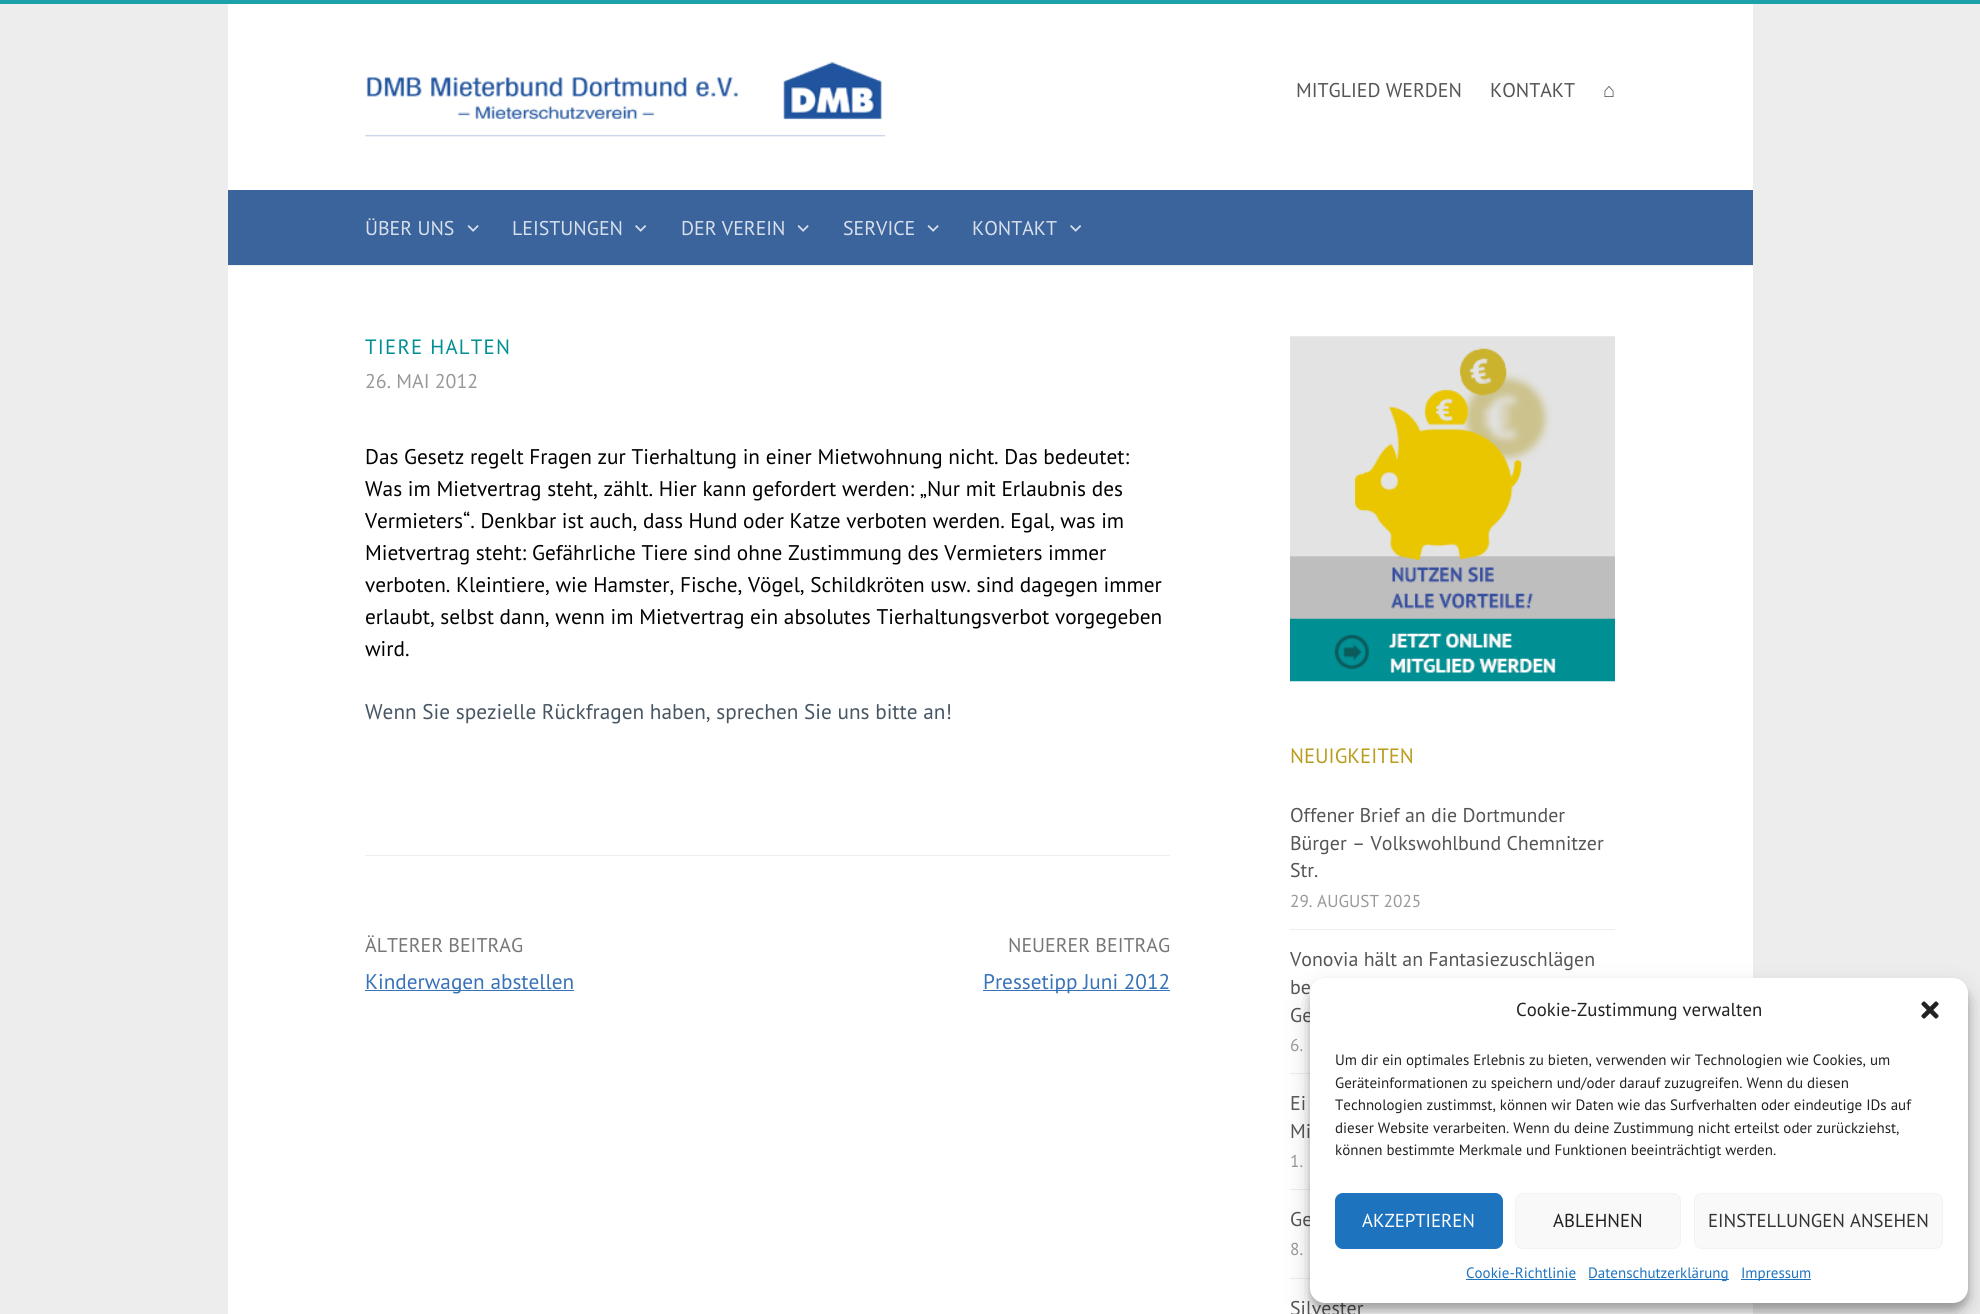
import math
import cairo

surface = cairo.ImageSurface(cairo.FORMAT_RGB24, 1980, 1314)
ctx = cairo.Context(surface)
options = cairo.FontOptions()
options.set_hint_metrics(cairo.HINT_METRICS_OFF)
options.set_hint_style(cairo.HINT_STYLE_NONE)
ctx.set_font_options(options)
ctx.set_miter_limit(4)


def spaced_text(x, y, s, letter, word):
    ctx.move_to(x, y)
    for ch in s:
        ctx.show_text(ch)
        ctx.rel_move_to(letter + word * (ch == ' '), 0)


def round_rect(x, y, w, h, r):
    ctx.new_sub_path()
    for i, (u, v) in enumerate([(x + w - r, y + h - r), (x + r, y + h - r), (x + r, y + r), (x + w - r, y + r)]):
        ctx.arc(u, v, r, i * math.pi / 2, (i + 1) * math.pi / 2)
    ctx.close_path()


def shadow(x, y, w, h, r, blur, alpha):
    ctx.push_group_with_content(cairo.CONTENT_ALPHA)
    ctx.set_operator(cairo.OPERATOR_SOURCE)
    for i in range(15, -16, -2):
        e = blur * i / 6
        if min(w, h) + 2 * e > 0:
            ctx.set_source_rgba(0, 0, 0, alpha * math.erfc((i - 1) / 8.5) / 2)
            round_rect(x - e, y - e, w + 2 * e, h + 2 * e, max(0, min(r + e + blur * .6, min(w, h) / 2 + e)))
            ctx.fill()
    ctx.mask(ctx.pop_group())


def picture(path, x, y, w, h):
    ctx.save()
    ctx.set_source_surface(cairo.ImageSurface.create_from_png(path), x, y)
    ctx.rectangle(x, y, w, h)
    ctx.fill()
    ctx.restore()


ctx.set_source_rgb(0.929, 0.929, 0.929)
ctx.paint()
ctx.set_source_rgb(0.106, 0.631, 0.671)
ctx.rectangle(0, 0, 1980, 4)
ctx.fill()
ctx.set_source_rgb(1, 1, 1)
ctx.rectangle(228, 4, 1525, 1310)
ctx.fill()
ctx.set_source_rgb(0.933, 0.933, 0.933)
ctx.rectangle(228, 265, 1525, 1)
ctx.fill()
picture("img1.png", 365, 62, 520, 75)
ctx.select_font_face("PT Sans")
ctx.set_font_size(19.9)
ctx.set_source_rgb(0.333, 0.333, 0.333)
ctx.move_to(1296, 97)
ctx.show_text("MITGLIED WERDEN")
ctx.move_to(1490, 97)
ctx.show_text("KONTAKT")
ctx.select_font_face("Liberation Serif")
ctx.move_to(1603, 97)
ctx.show_text("⌂")
ctx.set_source_rgb(0.231, 0.388, 0.612)
ctx.rectangle(228, 190, 1525, 75)
ctx.fill()
ctx.select_font_face("PT Sans")
ctx.set_source_rgb(0.847, 0.878, 0.922)
ctx.move_to(365, 235)
ctx.show_text("ÜBER UNS")
picture("img2.png", 467, 225, 12, 7)
ctx.move_to(512, 235)
ctx.show_text("LEISTUNGEN")
picture("img3.png", 635, 225, 12, 7)
ctx.move_to(681, 235)
ctx.show_text("DER VEREIN")
picture("img2.png", 797, 225, 12, 7)
ctx.move_to(843, 235)
ctx.show_text("SERVICE")
picture("img2.png", 927, 225, 12, 7)
ctx.move_to(972, 235)
ctx.show_text("KONTAKT")
picture("img3.png", 1070, 225, 12, 7)
ctx.set_source_rgb(0.933, 0.933, 0.933)
ctx.rectangle(365, 855, 805, 1)
ctx.fill()
ctx.set_font_size(20.75)
ctx.set_source_rgb(0, 0.561, 0.576)
spaced_text(365, 354, "TIERE HALTEN", 1.25, 0)
ctx.set_font_size(19.9)
ctx.set_source_rgb(0.6, 0.6, 0.6)
ctx.move_to(365, 388)
ctx.show_text("26. MAI 2012")
ctx.set_font_size(21.25)
ctx.set_source_rgb(0, 0, 0)
ctx.move_to(365, 464)
ctx.show_text("Das Gesetz regelt Fragen zur Tierhaltung in einer Mietwohnung nicht. Das bedeutet:")
ctx.move_to(365, 496)
ctx.show_text("Was im Mietvertrag steht, zählt. Hier kann gefordert werden: „Nur mit Erlaubnis des")
ctx.move_to(365, 528)
ctx.show_text("Vermieters“. Denkbar ist auch, dass Hund oder Katze verboten werden. Egal, was im")
ctx.move_to(365, 560)
ctx.show_text("Mietvertrag steht: Gefährliche Tiere sind ohne Zustimmung des Vermieters immer")
ctx.move_to(365, 592)
ctx.show_text("verboten. Kleintiere, wie Hamster, Fische, Vögel, Schildkröten usw. sind dagegen immer")
ctx.move_to(365, 624)
ctx.show_text("erlaubt, selbst dann, wenn im Mietvertrag ein absolutes Tierhaltungsverbot vorgegeben")
ctx.move_to(365, 656)
ctx.show_text("wird.")
ctx.set_source_rgb(0.278, 0.337, 0.388)
ctx.move_to(365, 719)
ctx.show_text("Wenn Sie spezielle Rückfragen haben, sprechen Sie uns bitte an!")
ctx.set_font_size(19.9)
ctx.set_source_rgb(0.467, 0.467, 0.467)
ctx.move_to(365, 952)
ctx.show_text("ÄLTERER BEITRAG")
ctx.set_source_rgb(0.22, 0.447, 0.722)
ctx.rectangle(365, 990, 209, 1)
ctx.fill()
ctx.set_font_size(21.25)
ctx.move_to(365, 989)
ctx.show_text("Kinderwagen abstellen")
ctx.set_font_size(19.9)
ctx.set_source_rgb(0.467, 0.467, 0.467)
ctx.move_to(1008, 952)
ctx.show_text("NEUERER BEITRAG")
ctx.set_source_rgb(0.22, 0.447, 0.722)
ctx.rectangle(983, 990, 187, 1)
ctx.fill()
ctx.set_font_size(21.25)
ctx.move_to(983, 989)
ctx.show_text("Pressetipp Juni 2012")
picture("img4.png", 1290, 336, 325, 346)
ctx.set_font_size(20.75)
ctx.set_source_rgb(0.729, 0.616, 0.125)
ctx.move_to(1290, 763)
ctx.show_text("NEUIGKEITEN")
ctx.set_font_size(19.9)
ctx.set_source_rgb(0.333, 0.333, 0.333)
ctx.move_to(1290, 822)
ctx.show_text("Offener Brief an die Dortmunder")
ctx.move_to(1290, 850)
ctx.show_text("Bürger – Volkswohlbund Chemnitzer")
ctx.move_to(1290, 877)
ctx.show_text("Str.")
ctx.set_font_size(17.25)
ctx.set_source_rgb(0.6, 0.6, 0.6)
ctx.move_to(1290, 907)
ctx.show_text("29. AUGUST 2025")
ctx.set_source_rgb(0.933, 0.933, 0.933)
ctx.rectangle(1290, 929, 325, 1)
ctx.fill()
ctx.set_font_size(19.9)
ctx.set_source_rgb(0.333, 0.333, 0.333)
ctx.move_to(1290, 966)
ctx.show_text("Vonovia hält an Fantasiezuschlägen")
ctx.move_to(1290, 994)
ctx.show_text("be")
ctx.move_to(1290, 1022)
ctx.show_text("Ge")
ctx.set_font_size(17.25)
ctx.set_source_rgb(0.6, 0.6, 0.6)
ctx.move_to(1290, 1051)
ctx.show_text("6.")
ctx.set_source_rgb(0.933, 0.933, 0.933)
ctx.rectangle(1290, 1073, 20, 1)
ctx.fill()
ctx.set_font_size(19.9)
ctx.set_source_rgb(0.333, 0.333, 0.333)
ctx.move_to(1290, 1110)
ctx.show_text("Ei")
ctx.move_to(1290, 1138)
ctx.show_text("Mi")
ctx.set_font_size(17.25)
ctx.set_source_rgb(0.6, 0.6, 0.6)
ctx.move_to(1290, 1167)
ctx.show_text("1.")
ctx.set_source_rgb(0.933, 0.933, 0.933)
ctx.rectangle(1290, 1189, 20, 1)
ctx.fill()
ctx.set_font_size(19.9)
ctx.set_source_rgb(0.333, 0.333, 0.333)
ctx.move_to(1290, 1226)
ctx.show_text("Ge")
ctx.set_font_size(17.25)
ctx.set_source_rgb(0.6, 0.6, 0.6)
ctx.move_to(1290, 1255)
ctx.show_text("8.")
ctx.set_source_rgb(0.933, 0.933, 0.933)
ctx.rectangle(1290, 1278, 20, 1)
ctx.fill()
ctx.set_font_size(19.9)
ctx.set_source_rgb(0.333, 0.333, 0.333)
ctx.move_to(1290, 1315)
ctx.show_text("Silvester")
ctx.set_source_rgb(0, 0, 0)
shadow(1310, 985, 658, 325, 15, 4, 0.23)
shadow(1310, 990, 658, 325, 15, 12.5, 0.19)
ctx.set_source_rgb(1, 1, 1)
round_rect(1310, 978, 658, 325, 15)
ctx.fill()
ctx.set_font_size(18.75)
ctx.set_source_rgb(0.133, 0.133, 0.133)
ctx.move_to(1516, 1016)
ctx.show_text("Cookie-Zustimmung verwalten")
picture("img5.png", 1921, 1001, 18, 18)
ctx.set_font_size(15)
ctx.move_to(1335, 1065)
ctx.show_text("Um dir ein optimales Erlebnis zu bieten, verwenden wir Technologien wie Cookies, um")
ctx.move_to(1335, 1088)
ctx.show_text("Geräteinformationen zu speichern und/oder darauf zuzugreifen. Wenn du diesen")
ctx.move_to(1335, 1110)
ctx.show_text("Technologien zustimmst, können wir Daten wie das Surfverhalten oder eindeutige IDs auf")
ctx.move_to(1335, 1133)
ctx.show_text("dieser Website verarbeiten. Wenn du deine Zustimmung nicht erteilst oder zurückziehst,")
ctx.move_to(1335, 1155)
ctx.show_text("können bestimmte Merkmale und Funktionen beeinträchtigt werden.")
ctx.set_source_rgb(0.118, 0.451, 0.745)
round_rect(1335.5, 1193.5, 167, 55, 7.5)
ctx.fill_preserve()
ctx.set_line_width(1)
ctx.stroke()
ctx.set_font_size(18.75)
ctx.set_source_rgb(1, 1, 1)
ctx.move_to(1362, 1227)
ctx.show_text("AKZEPTIEREN")
ctx.set_source_rgb(0.976, 0.976, 0.976)
round_rect(1515.5, 1193.5, 165, 55, 7.5)
ctx.fill_preserve()
ctx.set_source_rgb(0.949, 0.949, 0.949)
ctx.stroke()
ctx.set_source_rgb(0.133, 0.133, 0.133)
ctx.move_to(1553, 1227)
ctx.show_text("ABLEHNEN")
ctx.set_source_rgb(0.976, 0.976, 0.976)
round_rect(1694.5, 1193.5, 248, 55, 7.5)
ctx.fill_preserve()
ctx.set_source_rgb(0.949, 0.949, 0.949)
ctx.stroke()
ctx.set_source_rgb(0.2, 0.2, 0.2)
ctx.move_to(1708, 1227)
ctx.show_text("EINSTELLUNGEN ANSEHEN")
ctx.set_font_size(15)
ctx.set_source_rgb(0.118, 0.451, 0.745)
ctx.move_to(1466, 1278)
ctx.show_text("Cookie-Richtlinie")
ctx.rectangle(1466, 1279, 110, 1)
ctx.fill()
ctx.rectangle(1589, 1279, 140, 1)
ctx.fill()
ctx.move_to(1588, 1278)
ctx.show_text("Datenschutzerklärung")
ctx.rectangle(1741, 1279, 70, 1)
ctx.fill()
ctx.move_to(1741, 1278)
ctx.show_text("Impressum")
surface.write_to_png("page.png")
